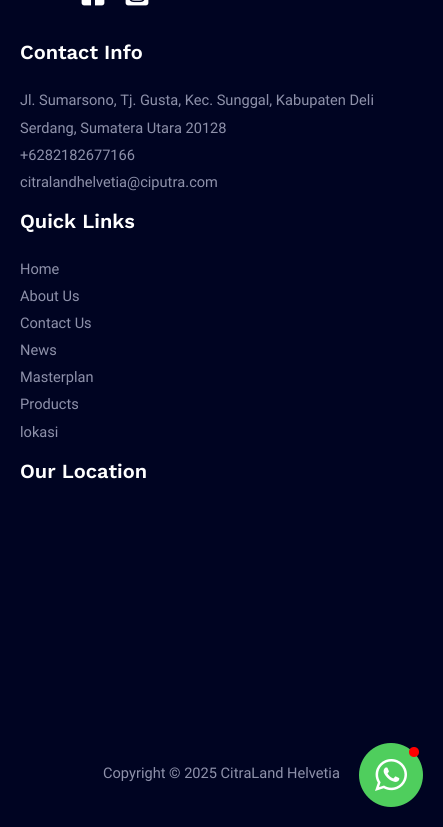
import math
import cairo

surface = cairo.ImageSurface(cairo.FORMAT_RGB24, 443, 827)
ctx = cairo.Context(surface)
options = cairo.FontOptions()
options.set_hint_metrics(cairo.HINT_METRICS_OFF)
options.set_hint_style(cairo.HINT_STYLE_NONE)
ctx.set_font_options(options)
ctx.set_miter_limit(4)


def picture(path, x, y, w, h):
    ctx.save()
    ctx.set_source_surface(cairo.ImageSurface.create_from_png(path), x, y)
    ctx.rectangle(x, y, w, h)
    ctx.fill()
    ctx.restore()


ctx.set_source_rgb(0, 0.016, 0.133)
ctx.paint()
picture("img1.png", 81, 0, 24, 6)
picture("img2.png", 125, 0, 24, 6)
ctx.select_font_face("Work Sans SemiBold")
ctx.set_font_size(20)
ctx.set_source_rgb(1, 1, 1)
ctx.move_to(20, 59)
ctx.show_text("Contact Info")
ctx.select_font_face("Roboto")
ctx.set_font_size(14.6)
ctx.set_source_rgb(0.557, 0.569, 0.667)
ctx.move_to(20, 105)
ctx.show_text("Jl. Sumarsono, Tj. Gusta, Kec. Sunggal, Kabupaten Deli")
ctx.move_to(20, 133)
ctx.show_text("Serdang, Sumatera Utara 20128")
ctx.move_to(20, 160)
ctx.show_text("+6282182677166")
ctx.move_to(20, 187)
ctx.show_text("citralandhelvetia@ciputra.com")
ctx.select_font_face("Work Sans SemiBold")
ctx.set_font_size(20)
ctx.set_source_rgb(1, 1, 1)
ctx.move_to(20, 228)
ctx.show_text("Quick Links")
ctx.select_font_face("Roboto")
ctx.set_font_size(14.6)
ctx.set_source_rgb(0.557, 0.569, 0.667)
ctx.move_to(20, 274)
ctx.show_text("Home")
ctx.move_to(20, 301)
ctx.show_text("About Us")
ctx.move_to(20, 328)
ctx.show_text("Contact Us")
ctx.move_to(20, 355)
ctx.show_text("News")
ctx.move_to(20, 382)
ctx.show_text("Masterplan")
ctx.move_to(20, 409)
ctx.show_text("Products")
ctx.move_to(20, 437)
ctx.show_text("lokasi")
ctx.select_font_face("Work Sans SemiBold")
ctx.set_font_size(20)
ctx.set_source_rgb(1, 1, 1)
ctx.move_to(20, 478)
ctx.show_text("Our Location")
ctx.select_font_face("Roboto")
ctx.set_font_size(14.6)
ctx.set_source_rgb(0.557, 0.569, 0.667)
ctx.move_to(103, 778)
ctx.show_text("Copyright © 2025 CitraLand Helvetia")
ctx.set_source_rgb(0.31, 0.808, 0.365)
ctx.new_path()
ctx.arc(391, 775, 32, 0, 2 * math.pi)
ctx.fill()
ctx.set_source_rgb(1, 0, 0)
ctx.arc(414, 752, 5, 0, 2 * math.pi)
ctx.fill()
picture("img3.png", 375, 759, 32, 32)
surface.write_to_png("page.png")
